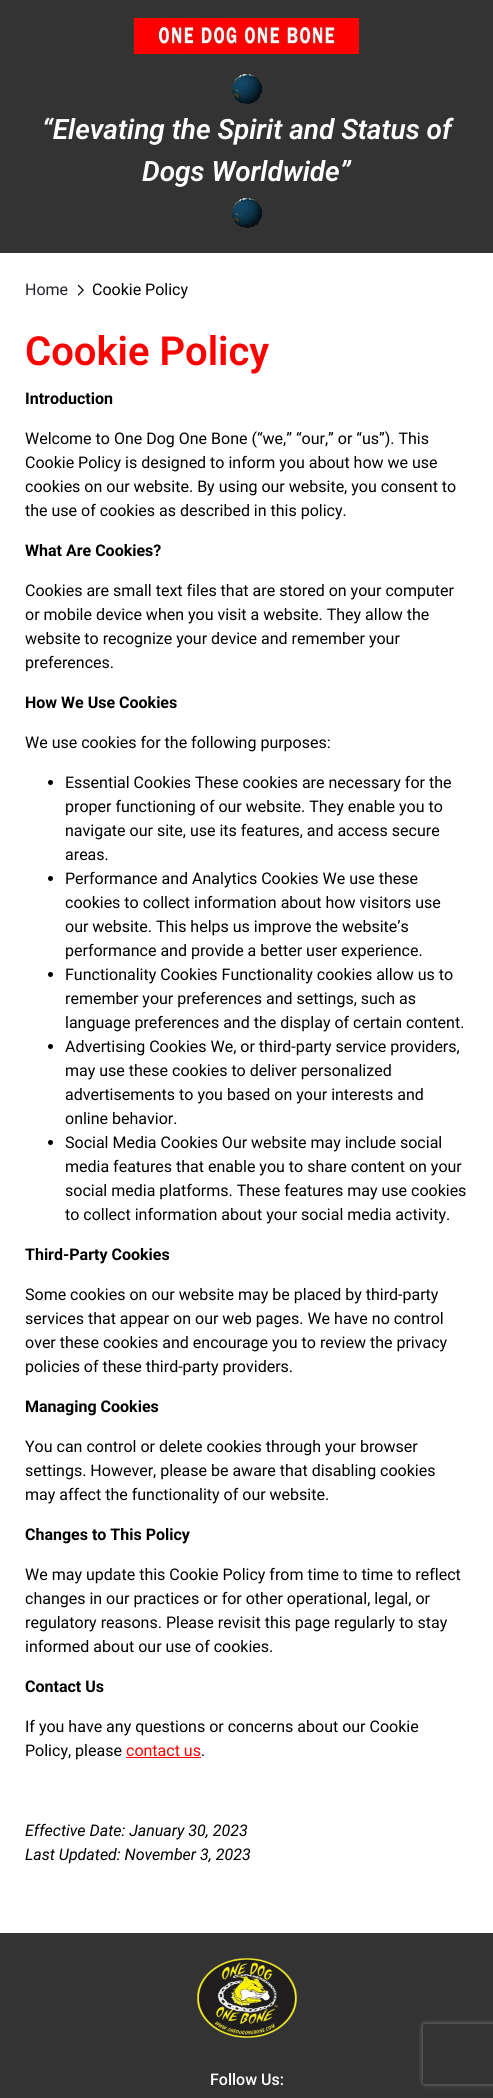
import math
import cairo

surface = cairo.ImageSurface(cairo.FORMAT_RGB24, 493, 2098)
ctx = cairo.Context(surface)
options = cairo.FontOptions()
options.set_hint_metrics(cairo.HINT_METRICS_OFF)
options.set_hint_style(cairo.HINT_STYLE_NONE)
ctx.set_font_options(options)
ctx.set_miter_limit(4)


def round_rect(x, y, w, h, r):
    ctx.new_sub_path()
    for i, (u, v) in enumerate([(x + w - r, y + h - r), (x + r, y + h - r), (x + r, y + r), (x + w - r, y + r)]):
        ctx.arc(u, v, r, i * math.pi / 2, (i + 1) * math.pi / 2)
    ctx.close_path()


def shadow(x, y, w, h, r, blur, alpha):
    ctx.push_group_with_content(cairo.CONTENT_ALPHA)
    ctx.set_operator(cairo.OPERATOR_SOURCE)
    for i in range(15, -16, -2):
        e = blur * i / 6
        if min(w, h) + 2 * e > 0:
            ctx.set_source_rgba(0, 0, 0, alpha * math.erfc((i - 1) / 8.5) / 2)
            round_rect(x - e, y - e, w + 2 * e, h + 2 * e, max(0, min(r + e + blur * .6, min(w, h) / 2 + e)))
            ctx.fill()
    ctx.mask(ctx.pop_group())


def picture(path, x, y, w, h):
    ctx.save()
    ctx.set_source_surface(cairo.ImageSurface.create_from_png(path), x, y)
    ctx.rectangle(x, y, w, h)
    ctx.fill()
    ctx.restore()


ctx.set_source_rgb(1, 1, 1)
ctx.paint()
ctx.set_source_rgb(0.2, 0.2, 0.2)
ctx.rectangle(0, 0, 493, 253)
ctx.fill()
picture("img1.png", 134, 18, 225, 36)
picture("img2.png", 232, 74, 30, 30)
ctx.select_font_face("Roboto SemiBold", cairo.FONT_SLANT_ITALIC)
ctx.set_font_size(28)
ctx.set_source_rgb(1, 1, 1)
ctx.move_to(42, 139)
ctx.show_text("“Elevating the Spirit and Status of")
ctx.move_to(142, 181)
ctx.show_text("Dogs Worldwide”")
picture("img2.png", 232, 198, 30, 30)
ctx.select_font_face("Roboto")
ctx.set_font_size(16)
ctx.set_source_rgb(0.129, 0.145, 0.161)
ctx.move_to(25, 295)
ctx.show_text("Home")
picture("img3.png", 77, 284, 7, 12)
ctx.set_source_rgb(0, 0, 0)
ctx.move_to(92, 295)
ctx.show_text("Cookie Policy")
ctx.select_font_face("Roboto SemiBold")
ctx.set_font_size(40)
ctx.set_source_rgb(1, 0, 0)
ctx.move_to(25, 365)
ctx.show_text("Cookie Policy")
ctx.select_font_face("Roboto", cairo.FONT_SLANT_NORMAL, cairo.FONT_WEIGHT_BOLD)
ctx.set_font_size(16)
ctx.set_source_rgb(0, 0, 0)
ctx.move_to(25, 404)
ctx.show_text("Introduction")
ctx.select_font_face("Roboto")
ctx.move_to(25, 444)
ctx.show_text("Welcome to One Dog One Bone (“we,” “our,” or “us”). This")
ctx.move_to(25, 468)
ctx.show_text("Cookie Policy is designed to inform you about how we use")
ctx.move_to(25, 492)
ctx.show_text("cookies on our website. By using our website, you consent to")
ctx.move_to(25, 516)
ctx.show_text("the use of cookies as described in this policy.")
ctx.select_font_face("Roboto", cairo.FONT_SLANT_NORMAL, cairo.FONT_WEIGHT_BOLD)
ctx.move_to(25, 556)
ctx.show_text("What Are Cookies?")
ctx.select_font_face("Roboto")
ctx.move_to(25, 596)
ctx.show_text("Cookies are small text files that are stored on your computer")
ctx.move_to(25, 620)
ctx.show_text("or mobile device when you visit a website. They allow the")
ctx.move_to(25, 644)
ctx.show_text("website to recognize your device and remember your")
ctx.move_to(25, 668)
ctx.show_text("preferences.")
ctx.select_font_face("Roboto", cairo.FONT_SLANT_NORMAL, cairo.FONT_WEIGHT_BOLD)
ctx.move_to(25, 708)
ctx.show_text("How We Use Cookies")
ctx.select_font_face("Roboto")
ctx.move_to(25, 748)
ctx.show_text("We use cookies for the following purposes:")
ctx.new_path()
ctx.arc(50.5, 782.5, 2.5, 0, 2 * math.pi)
ctx.fill()
ctx.move_to(65, 788)
ctx.show_text("Essential Cookies These cookies are necessary for the")
ctx.move_to(65, 812)
ctx.show_text("proper functioning of our website. They enable you to")
ctx.move_to(65, 836)
ctx.show_text("navigate our site, use its features, and access secure")
ctx.move_to(65, 860)
ctx.show_text("areas.")
ctx.new_path()
ctx.arc(50.5, 878.5, 2.5, 0, 2 * math.pi)
ctx.fill()
ctx.move_to(65, 884)
ctx.show_text("Performance and Analytics Cookies We use these")
ctx.move_to(65, 908)
ctx.show_text("cookies to collect information about how visitors use")
ctx.move_to(65, 932)
ctx.show_text("our website. This helps us improve the website’s")
ctx.move_to(65, 956)
ctx.show_text("performance and provide a better user experience.")
ctx.new_path()
ctx.arc(50.5, 974.5, 2.5, 0, 2 * math.pi)
ctx.fill()
ctx.move_to(65, 980)
ctx.show_text("Functionality Cookies Functionality cookies allow us to")
ctx.move_to(65, 1004)
ctx.show_text("remember your preferences and settings, such as")
ctx.move_to(65, 1028)
ctx.show_text("language preferences and the display of certain content.")
ctx.new_path()
ctx.arc(50.5, 1046.5, 2.5, 0, 2 * math.pi)
ctx.fill()
ctx.move_to(65, 1052)
ctx.show_text("Advertising Cookies We, or third-party service providers,")
ctx.move_to(65, 1076)
ctx.show_text("may use these cookies to deliver personalized")
ctx.move_to(65, 1100)
ctx.show_text("advertisements to you based on your interests and")
ctx.move_to(65, 1124)
ctx.show_text("online behavior.")
ctx.new_path()
ctx.arc(50.5, 1142.5, 2.5, 0, 2 * math.pi)
ctx.fill()
ctx.move_to(65, 1148)
ctx.show_text("Social Media Cookies Our website may include social")
ctx.move_to(65, 1172)
ctx.show_text("media features that enable you to share content on your")
ctx.move_to(65, 1196)
ctx.show_text("social media platforms. These features may use cookies")
ctx.move_to(65, 1220)
ctx.show_text("to collect information about your social media activity.")
ctx.select_font_face("Roboto", cairo.FONT_SLANT_NORMAL, cairo.FONT_WEIGHT_BOLD)
ctx.move_to(25, 1260)
ctx.show_text("Third-Party Cookies")
ctx.select_font_face("Roboto")
ctx.move_to(25, 1300)
ctx.show_text("Some cookies on our website may be placed by third-party")
ctx.move_to(25, 1324)
ctx.show_text("services that appear on our web pages. We have no control")
ctx.move_to(25, 1348)
ctx.show_text("over these cookies and encourage you to review the privacy")
ctx.move_to(25, 1372)
ctx.show_text("policies of these third-party providers.")
ctx.select_font_face("Roboto", cairo.FONT_SLANT_NORMAL, cairo.FONT_WEIGHT_BOLD)
ctx.move_to(25, 1412)
ctx.show_text("Managing Cookies")
ctx.select_font_face("Roboto")
ctx.move_to(25, 1452)
ctx.show_text("You can control or delete cookies through your browser")
ctx.move_to(25, 1476)
ctx.show_text("settings. However, please be aware that disabling cookies")
ctx.move_to(25, 1500)
ctx.show_text("may affect the functionality of our website.")
ctx.select_font_face("Roboto", cairo.FONT_SLANT_NORMAL, cairo.FONT_WEIGHT_BOLD)
ctx.move_to(25, 1540)
ctx.show_text("Changes to This Policy")
ctx.select_font_face("Roboto")
ctx.move_to(25, 1580)
ctx.show_text("We may update this Cookie Policy from time to time to reflect")
ctx.move_to(25, 1604)
ctx.show_text("changes in our practices or for other operational, legal, or")
ctx.move_to(25, 1628)
ctx.show_text("regulatory reasons. Please revisit this page regularly to stay")
ctx.move_to(25, 1652)
ctx.show_text("informed about our use of cookies.")
ctx.select_font_face("Roboto", cairo.FONT_SLANT_NORMAL, cairo.FONT_WEIGHT_BOLD)
ctx.move_to(25, 1692)
ctx.show_text("Contact Us")
ctx.select_font_face("Roboto")
ctx.move_to(25, 1732)
ctx.show_text("If you have any questions or concerns about our Cookie")
ctx.move_to(25, 1756)
ctx.show_text("Policy, please")
ctx.set_source_rgb(1, 0, 0)
ctx.move_to(126, 1756)
ctx.show_text("contact us")
ctx.rectangle(126, 1757, 75, 1)
ctx.fill()
ctx.set_source_rgb(0, 0, 0)
ctx.move_to(201, 1756)
ctx.show_text(".")
ctx.select_font_face("Roboto", cairo.FONT_SLANT_ITALIC)
ctx.move_to(25, 1836)
ctx.show_text("Effective Date: January 30, 2023")
ctx.move_to(25, 1860)
ctx.show_text("Last Updated: November 3, 2023")
ctx.set_source_rgb(0.2, 0.2, 0.2)
ctx.rectangle(0, 1933, 493, 165)
ctx.fill()
picture("img4.png", 197, 1958, 100, 80)
ctx.select_font_face("Roboto Medium")
ctx.set_source_rgb(1, 1, 1)
ctx.move_to(210, 2085)
ctx.show_text("Follow Us:")
ctx.save()
ctx.set_fill_rule(cairo.FILL_RULE_EVEN_ODD)
ctx.new_path()
ctx.move_to(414, 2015)
ctx.line_to(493, 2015)
ctx.line_to(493, 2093)
ctx.line_to(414, 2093)
ctx.close_path()
ctx.move_to(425, 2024)
ctx.line_to(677, 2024)
ctx.curve_to(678, 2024, 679, 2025, 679, 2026)
ctx.line_to(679, 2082)
ctx.curve_to(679, 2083, 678, 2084, 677, 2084)
ctx.line_to(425, 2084)
ctx.curve_to(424, 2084, 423, 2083, 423, 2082)
ctx.line_to(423, 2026)
ctx.curve_to(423, 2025, 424, 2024, 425, 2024)
ctx.close_path()
ctx.clip()
ctx.set_source_rgb(0.502, 0.502, 0.502)
shadow(423, 2024, 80, 60, 2, 2.5, 1)
ctx.restore()
surface.write_to_png("page.png")
